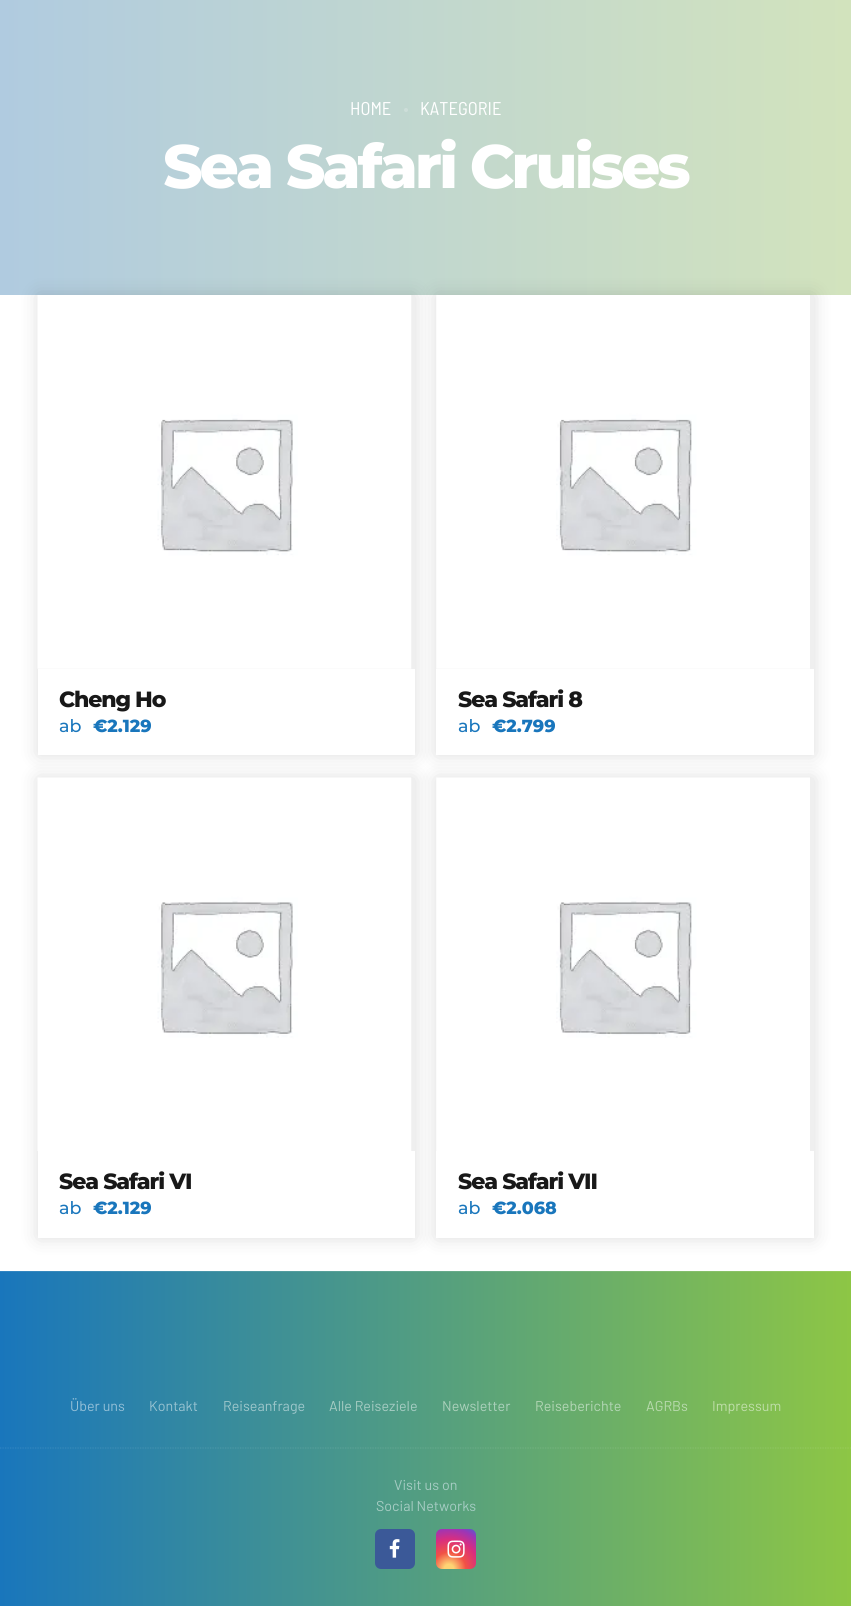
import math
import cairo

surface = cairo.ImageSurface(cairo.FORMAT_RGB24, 851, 1612)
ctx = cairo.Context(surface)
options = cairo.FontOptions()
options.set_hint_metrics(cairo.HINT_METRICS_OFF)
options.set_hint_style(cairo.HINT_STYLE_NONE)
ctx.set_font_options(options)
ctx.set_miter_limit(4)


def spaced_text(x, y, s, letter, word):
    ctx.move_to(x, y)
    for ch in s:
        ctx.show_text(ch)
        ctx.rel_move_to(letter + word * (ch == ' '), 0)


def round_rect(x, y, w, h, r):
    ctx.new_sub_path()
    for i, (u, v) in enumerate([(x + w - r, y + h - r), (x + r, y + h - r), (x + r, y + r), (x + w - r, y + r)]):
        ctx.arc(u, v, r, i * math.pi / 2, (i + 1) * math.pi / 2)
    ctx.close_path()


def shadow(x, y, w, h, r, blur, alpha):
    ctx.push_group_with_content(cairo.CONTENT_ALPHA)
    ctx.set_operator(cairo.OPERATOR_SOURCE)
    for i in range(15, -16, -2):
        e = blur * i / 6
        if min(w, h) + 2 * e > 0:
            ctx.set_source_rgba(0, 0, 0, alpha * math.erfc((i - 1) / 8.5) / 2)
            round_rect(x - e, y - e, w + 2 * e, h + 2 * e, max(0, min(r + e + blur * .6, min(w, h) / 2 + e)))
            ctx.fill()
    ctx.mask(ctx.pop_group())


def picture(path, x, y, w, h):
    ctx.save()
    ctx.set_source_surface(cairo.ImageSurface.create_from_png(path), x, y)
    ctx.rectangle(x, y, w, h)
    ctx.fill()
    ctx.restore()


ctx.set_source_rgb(1, 1, 1)
ctx.paint()
gradient = cairo.LinearGradient(0, 148, 851, 147)
gradient.add_color_stop_rgba(0, 0.69, 0.796, 0.878, 1)
gradient.add_color_stop_rgba(1, 0.824, 0.89, 0.741, 1)
ctx.set_source(gradient)
ctx.rectangle(0, 0, 851, 295)
ctx.fill()
ctx.select_font_face("Barlow Semi Condensed")
ctx.set_font_size(18.5)
ctx.set_source_rgb(1, 1, 1)
ctx.move_to(350, 115)
ctx.show_text("HOME")
ctx.set_source_rgb(0.804, 0.871, 0.851)
ctx.new_path()
ctx.arc(406, 110, 2, 0, 2 * math.pi)
ctx.fill()
ctx.set_source_rgb(1, 1, 1)
ctx.move_to(420, 115)
ctx.show_text("KATEGORIE")
ctx.select_font_face("Montserrat ExtraBold")
ctx.set_font_size(61.25)
spaced_text(163, 188, "Sea Safari Cruises", -3.1, 0)
ctx.save()
ctx.set_fill_rule(cairo.FILL_RULE_EVEN_ODD)
ctx.new_path()
ctx.move_to(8, 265)
ctx.line_to(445, 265)
ctx.line_to(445, 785)
ctx.line_to(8, 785)
ctx.close_path()
ctx.move_to(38, 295)
ctx.line_to(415, 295)
ctx.line_to(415, 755)
ctx.line_to(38, 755)
ctx.close_path()
ctx.clip()
ctx.set_source_rgb(0.094, 0.094, 0.094)
shadow(38, 295, 377, 460, 0, 9.5, 0.15)
ctx.restore()
ctx.set_source_rgb(0.937, 0.937, 0.937)
ctx.rectangle(38, 295, 377, 374)
ctx.fill()
picture("img1.png", 37, 295, 375, 374)
ctx.set_font_size(22)
ctx.set_source_rgb(0.094, 0.094, 0.094)
spaced_text(59, 707, "Cheng Ho", -1.1, 0)
ctx.select_font_face("Montserrat Medium")
ctx.set_font_size(17.5)
ctx.set_source_rgb(0.098, 0.463, 0.737)
ctx.move_to(59, 732)
ctx.show_text("ab")
ctx.select_font_face("Montserrat ExtraBold")
ctx.move_to(93, 732)
ctx.show_text("€2.129")
ctx.save()
ctx.set_fill_rule(cairo.FILL_RULE_EVEN_ODD)
ctx.new_path()
ctx.move_to(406, 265)
ctx.line_to(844, 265)
ctx.line_to(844, 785)
ctx.line_to(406, 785)
ctx.close_path()
ctx.move_to(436, 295)
ctx.line_to(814, 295)
ctx.line_to(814, 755)
ctx.line_to(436, 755)
ctx.close_path()
ctx.clip()
ctx.set_source_rgb(0.094, 0.094, 0.094)
shadow(436, 295, 378, 460, 0, 9.5, 0.15)
ctx.restore()
ctx.set_source_rgba(0.094, 0.094, 0.094, 0.07)
ctx.rectangle(436, 295, 378, 374)
ctx.fill()
picture("img2.png", 436, 295, 374, 374)
ctx.set_source_rgb(1, 1, 1)
ctx.rectangle(436, 669, 378, 85)
ctx.fill()
ctx.set_font_size(22)
ctx.set_source_rgb(0.094, 0.094, 0.094)
spaced_text(458, 707, "Sea Safari 8", -1.1, 0)
ctx.select_font_face("Montserrat Medium")
ctx.set_font_size(17.5)
ctx.set_source_rgb(0.098, 0.463, 0.737)
ctx.move_to(458, 732)
ctx.show_text("ab")
ctx.select_font_face("Montserrat ExtraBold")
ctx.move_to(492, 732)
ctx.show_text("€2.799")
ctx.set_source_rgb(0.094, 0.094, 0.094)
shadow(38, 778, 377, 460, 0, 9.5, 0.15)
ctx.set_source_rgb(0.937, 0.937, 0.937)
ctx.rectangle(411, 778, 4, 373)
ctx.fill()
picture("img3.png", 37, 777, 375, 374)
ctx.set_source_rgb(1, 1, 1)
ctx.rectangle(38, 1151, 377, 87)
ctx.fill()
ctx.set_font_size(22)
ctx.set_source_rgb(0.094, 0.094, 0.094)
spaced_text(59, 1189, "Sea Safari VI", -1.1, 0)
ctx.select_font_face("Montserrat Medium")
ctx.set_font_size(17.5)
ctx.set_source_rgb(0.098, 0.463, 0.737)
ctx.move_to(59, 1214)
ctx.show_text("ab")
ctx.select_font_face("Montserrat ExtraBold")
ctx.move_to(93, 1214)
ctx.show_text("€2.129")
ctx.save()
ctx.set_fill_rule(cairo.FILL_RULE_EVEN_ODD)
ctx.new_path()
ctx.move_to(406, 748)
ctx.line_to(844, 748)
ctx.line_to(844, 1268)
ctx.line_to(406, 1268)
ctx.close_path()
ctx.move_to(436, 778)
ctx.line_to(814, 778)
ctx.line_to(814, 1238)
ctx.line_to(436, 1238)
ctx.close_path()
ctx.clip()
ctx.set_source_rgb(0.094, 0.094, 0.094)
shadow(436, 778, 378, 460, 0, 9.5, 0.15)
ctx.restore()
ctx.set_source_rgba(0.094, 0.094, 0.094, 0.07)
ctx.rectangle(436, 778, 378, 373)
ctx.fill()
picture("img4.png", 436, 777, 374, 374)
ctx.set_source_rgb(1, 1, 1)
ctx.rectangle(436, 1151, 378, 87)
ctx.fill()
ctx.set_font_size(22)
ctx.set_source_rgb(0.094, 0.094, 0.094)
spaced_text(458, 1189, "Sea Safari VII", -1.1, 0)
ctx.select_font_face("Montserrat Medium")
ctx.set_font_size(17.5)
ctx.set_source_rgb(0.098, 0.463, 0.737)
ctx.move_to(458, 1214)
ctx.show_text("ab")
ctx.select_font_face("Montserrat ExtraBold")
ctx.move_to(492, 1214)
ctx.show_text("€2.068")
gradient = cairo.LinearGradient(0, 1439, 851, 1439)
gradient.add_color_stop_rgba(0, 0.098, 0.463, 0.737, 1)
gradient.add_color_stop_rgba(1, 0.553, 0.776, 0.271, 1)
ctx.set_source(gradient)
ctx.rectangle(0, 1272, 851, 334)
ctx.fill()
gradient = cairo.LinearGradient(0, 1439, 851, 1439)
gradient.add_color_stop_rgba(0, 0.188, 0.518, 0.765, 1)
gradient.add_color_stop_rgba(1, 0.596, 0.8, 0.345, 1)
ctx.set_source(gradient)
ctx.rectangle(0, 1271, 851, 1)
ctx.fill()
ctx.select_font_face("Barlow")
ctx.set_font_size(14.25)
ctx.set_source_rgb(0.576, 0.749, 0.843)
ctx.move_to(70, 1411)
ctx.show_text("Über uns")
ctx.set_source_rgb(0.596, 0.765, 0.82)
ctx.move_to(149, 1411)
ctx.show_text("Kontakt")
ctx.set_source_rgb(0.62, 0.78, 0.796)
ctx.move_to(223, 1411)
ctx.show_text("Reiseanfrage")
ctx.set_source_rgb(0.651, 0.8, 0.765)
ctx.move_to(329, 1411)
ctx.show_text("Alle Reiseziele")
ctx.set_source_rgb(0.675, 0.82, 0.737)
ctx.move_to(442, 1411)
ctx.show_text("Newsletter")
ctx.set_source_rgb(0.702, 0.839, 0.71)
ctx.move_to(535, 1411)
ctx.show_text("Reiseberichte")
ctx.set_source_rgb(0.725, 0.855, 0.686)
ctx.move_to(646, 1411)
ctx.show_text("AGRBs")
ctx.set_source_rgb(0.749, 0.871, 0.663)
ctx.move_to(712, 1411)
ctx.show_text("Impressum")
ctx.new_path()
ctx.move_to(0, 1448)
ctx.line_to(851, 1448)
ctx.set_source_rgba(1, 1, 1, 0.1)
ctx.set_line_width(1.2)
ctx.set_dash([1.25, 1.25])
ctx.stroke()
ctx.set_source_rgb(0.651, 0.8, 0.765)
ctx.move_to(394, 1490)
ctx.show_text("Visit us on")
ctx.move_to(376, 1511)
ctx.show_text("Social Networks")
ctx.set_source_rgb(0.231, 0.349, 0.596)
round_rect(375, 1529, 40, 40, 6)
ctx.fill()
picture("img5.png", 389, 1539, 11, 19)
gradient = cairo.RadialGradient(449, 1569, 0, 449, 1569, 48)
gradient.add_color_stop_rgba(0.1, 0.996, 0.827, 0.451, 1)
gradient.add_color_stop_rgba(0.35, 0.945, 0.322, 0.271, 1)
gradient.add_color_stop_rgba(0.62, 0.851, 0.18, 0.498, 1)
gradient.add_color_stop_rgba(0.85, 0.608, 0.212, 0.718, 1)
gradient.add_color_stop_rgba(1, 0.318, 0.369, 0.812, 1)
ctx.set_source(gradient)
round_rect(436, 1529, 40, 40, 6)
ctx.fill()
picture("img6.png", 447, 1540, 18, 18)
surface.write_to_png("page.png")
